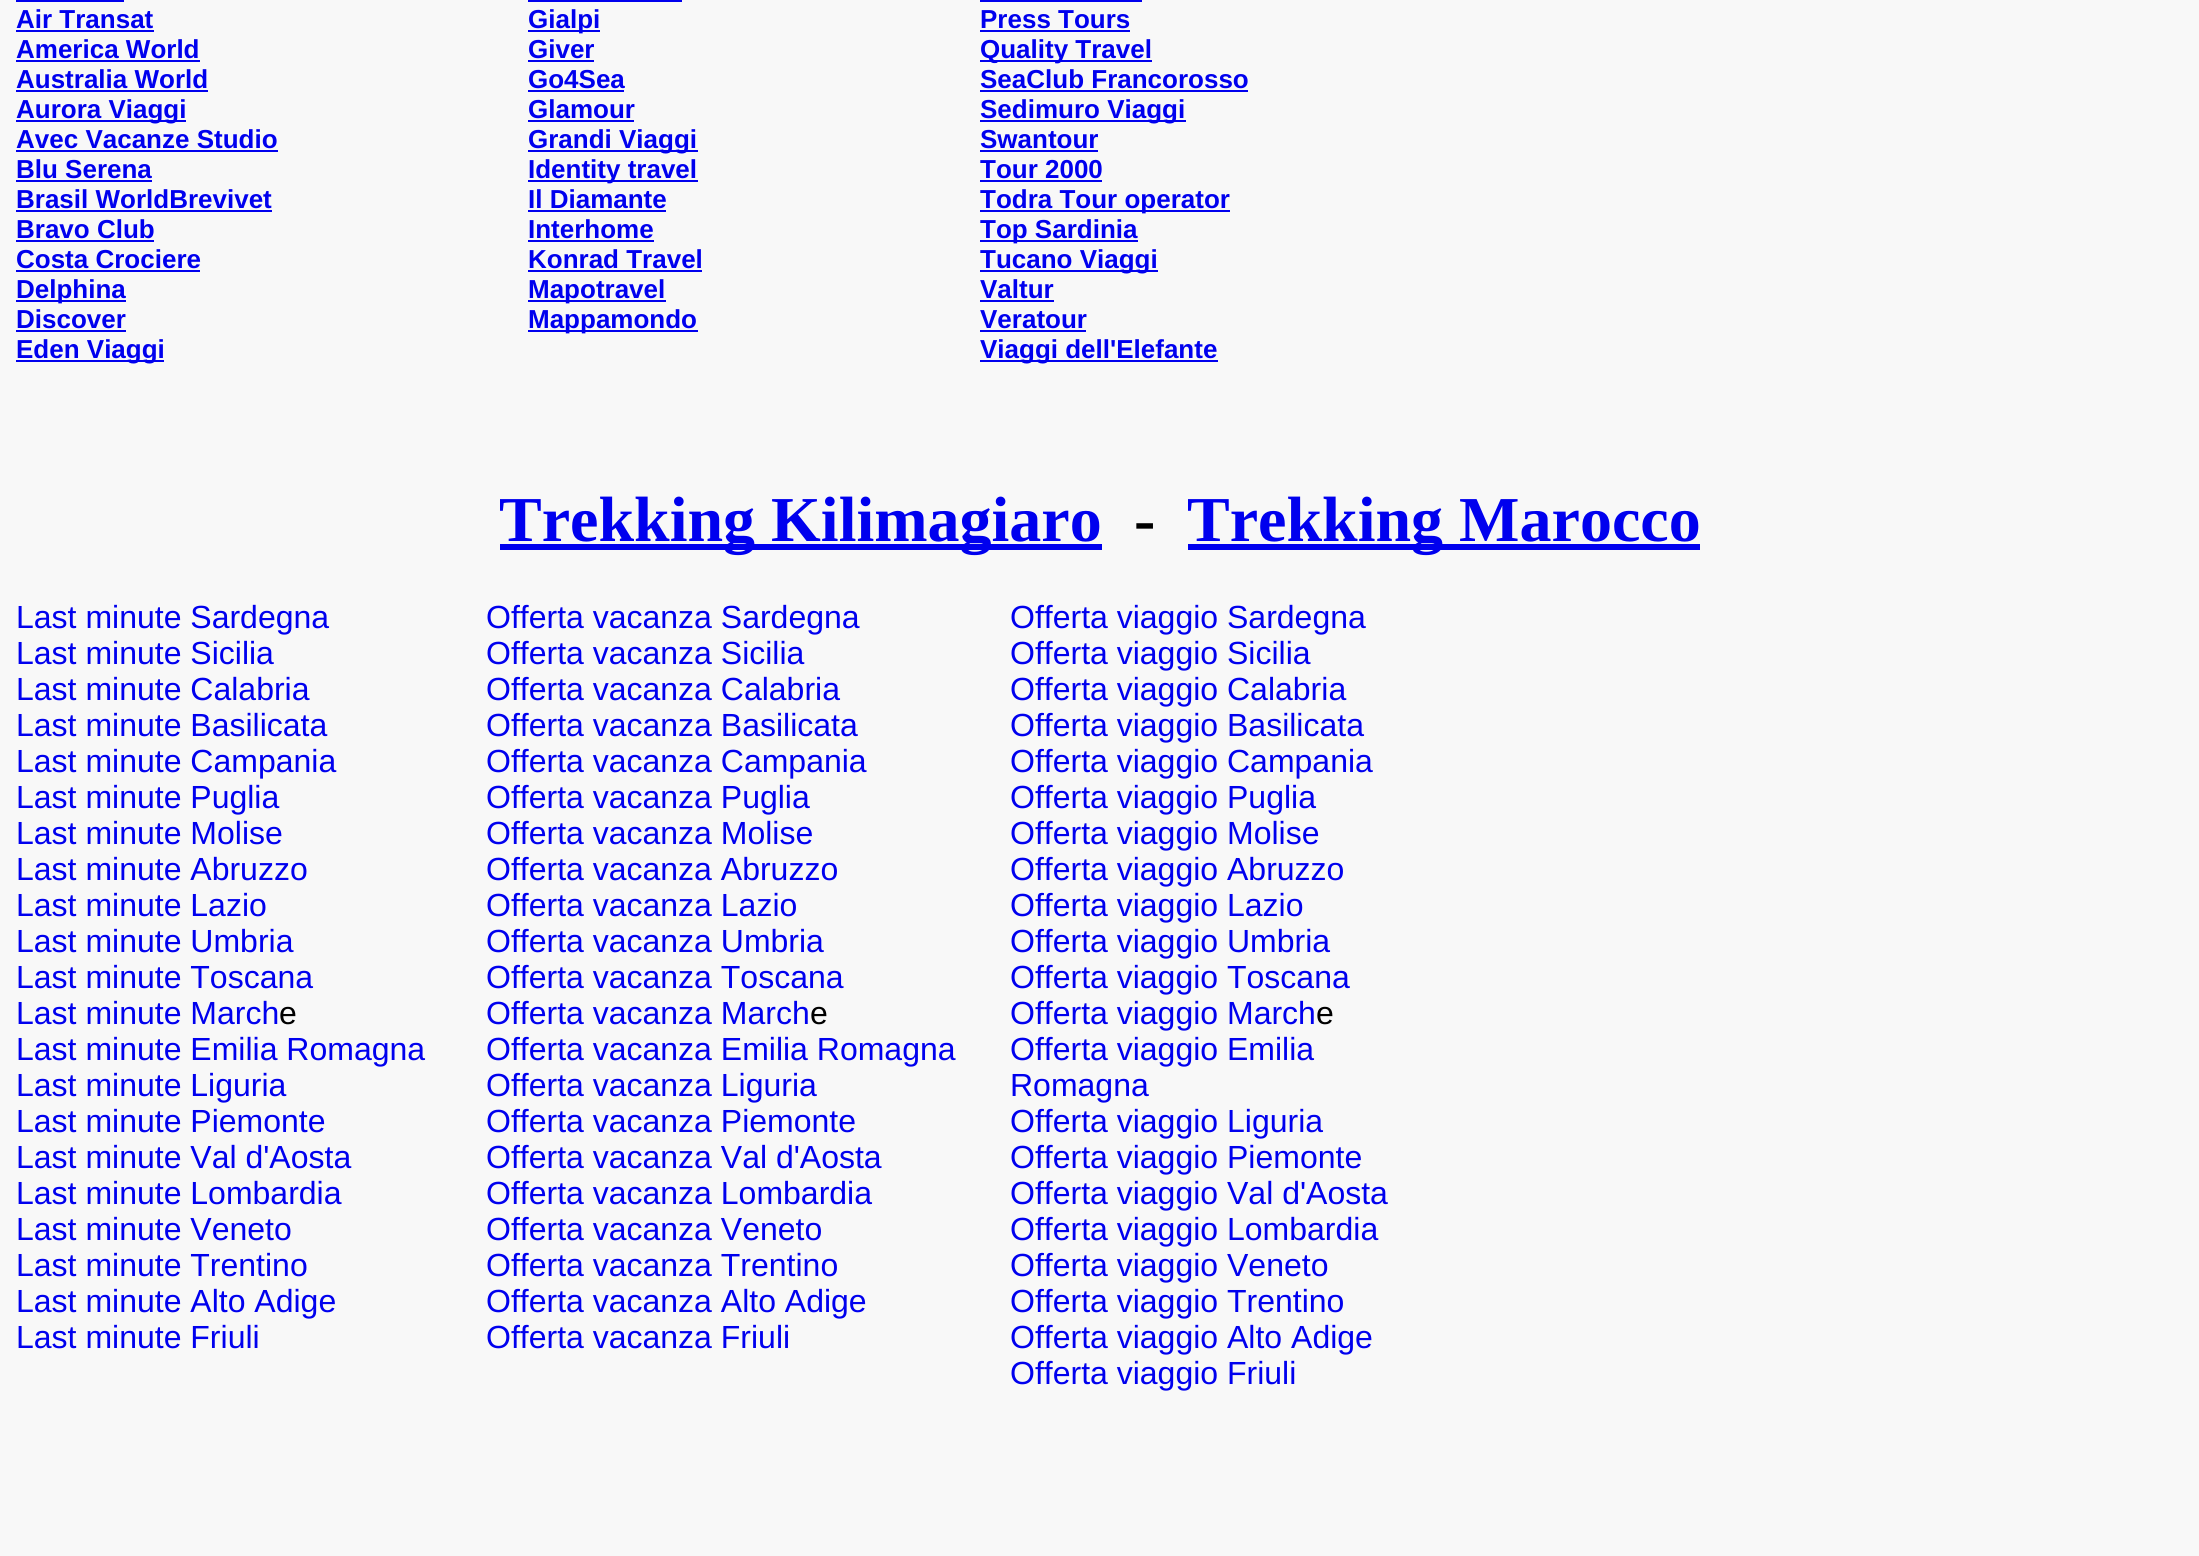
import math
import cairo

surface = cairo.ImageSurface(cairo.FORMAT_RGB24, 2199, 1556)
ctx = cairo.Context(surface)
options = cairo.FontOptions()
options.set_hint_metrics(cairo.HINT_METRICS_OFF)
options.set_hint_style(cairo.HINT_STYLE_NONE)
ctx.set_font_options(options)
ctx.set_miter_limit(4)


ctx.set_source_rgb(0.969, 0.969, 0.969)
ctx.paint()
ctx.select_font_face("Liberation Sans", cairo.FONT_SLANT_NORMAL, cairo.FONT_WEIGHT_BOLD)
ctx.set_font_size(26)
ctx.set_source_rgb(0, 0, 0.933)
ctx.move_to(16, 28)
ctx.show_text("Air Transat")
ctx.rectangle(16, 0, 108, 2)
ctx.fill()
ctx.rectangle(16, 30, 138, 2)
ctx.fill()
ctx.move_to(16, 58)
ctx.show_text("America World")
ctx.rectangle(16, 60, 184, 2)
ctx.fill()
ctx.move_to(16, 88)
ctx.show_text("Australia World")
ctx.rectangle(16, 90, 192, 2)
ctx.fill()
ctx.rectangle(16, 120, 170, 2)
ctx.fill()
ctx.move_to(16, 118)
ctx.show_text("Aurora Viaggi")
ctx.move_to(16, 148)
ctx.show_text("Avec Vacanze Studio")
ctx.rectangle(16, 150, 262, 2)
ctx.fill()
ctx.move_to(16, 178)
ctx.show_text("Blu Serena")
ctx.rectangle(16, 180, 136, 2)
ctx.fill()
ctx.move_to(16, 208)
ctx.show_text("Brasil WorldBrevivet")
ctx.rectangle(16, 210, 256, 2)
ctx.fill()
ctx.move_to(16, 238)
ctx.show_text("Bravo Club")
ctx.rectangle(16, 240, 138, 2)
ctx.fill()
ctx.move_to(16, 268)
ctx.show_text("Costa Crociere")
ctx.rectangle(16, 270, 184, 2)
ctx.fill()
ctx.rectangle(16, 300, 110, 2)
ctx.fill()
ctx.move_to(16, 298)
ctx.show_text("Delphina")
ctx.move_to(16, 328)
ctx.show_text("Discover")
ctx.rectangle(16, 330, 110, 2)
ctx.fill()
ctx.rectangle(16, 360, 148, 2)
ctx.fill()
ctx.move_to(16, 358)
ctx.show_text("Eden Viaggi")
ctx.rectangle(528, 30, 72, 2)
ctx.fill()
ctx.move_to(528, 28)
ctx.show_text("Gialpi")
ctx.rectangle(528, 0, 154, 2)
ctx.fill()
ctx.move_to(528, 58)
ctx.show_text("Giver")
ctx.rectangle(528, 60, 66, 2)
ctx.fill()
ctx.move_to(528, 88)
ctx.show_text("Go4Sea")
ctx.rectangle(528, 90, 96, 2)
ctx.fill()
ctx.move_to(528, 118)
ctx.show_text("Glamour")
ctx.rectangle(528, 120, 106, 2)
ctx.fill()
ctx.rectangle(528, 150, 170, 2)
ctx.fill()
ctx.move_to(528, 148)
ctx.show_text("Grandi Viaggi")
ctx.rectangle(528, 180, 170, 2)
ctx.fill()
ctx.move_to(528, 178)
ctx.show_text("Identity travel")
ctx.move_to(528, 208)
ctx.show_text("Il Diamante")
ctx.rectangle(528, 210, 138, 2)
ctx.fill()
ctx.move_to(528, 238)
ctx.show_text("Interhome")
ctx.rectangle(528, 240, 126, 2)
ctx.fill()
ctx.move_to(528, 268)
ctx.show_text("Konrad Travel")
ctx.rectangle(528, 270, 174, 2)
ctx.fill()
ctx.rectangle(528, 300, 138, 2)
ctx.fill()
ctx.move_to(528, 298)
ctx.show_text("Mapotravel")
ctx.rectangle(528, 330, 170, 2)
ctx.fill()
ctx.move_to(528, 328)
ctx.show_text("Mappamondo")
ctx.move_to(980, 28)
ctx.show_text("Press Tours")
ctx.rectangle(980, 0, 162, 2)
ctx.fill()
ctx.rectangle(980, 30, 150, 2)
ctx.fill()
ctx.rectangle(980, 60, 172, 2)
ctx.fill()
ctx.move_to(980, 58)
ctx.show_text("Quality Travel")
ctx.move_to(980, 88)
ctx.show_text("SeaClub Francorosso")
ctx.rectangle(980, 90, 268, 2)
ctx.fill()
ctx.rectangle(980, 120, 206, 2)
ctx.fill()
ctx.move_to(980, 118)
ctx.show_text("Sedimuro Viaggi")
ctx.move_to(980, 148)
ctx.show_text("Swantour")
ctx.rectangle(980, 150, 118, 2)
ctx.fill()
ctx.move_to(980, 178)
ctx.show_text("Tour 2000")
ctx.rectangle(980, 180, 122, 2)
ctx.fill()
ctx.rectangle(980, 210, 250, 2)
ctx.fill()
ctx.move_to(980, 208)
ctx.show_text("Todra Tour operator")
ctx.rectangle(980, 240, 158, 2)
ctx.fill()
ctx.move_to(980, 238)
ctx.show_text("Top Sardinia")
ctx.rectangle(980, 270, 178, 2)
ctx.fill()
ctx.move_to(980, 268)
ctx.show_text("Tucano Viaggi")
ctx.move_to(980, 298)
ctx.show_text("Valtur")
ctx.rectangle(980, 300, 74, 2)
ctx.fill()
ctx.move_to(980, 328)
ctx.show_text("Veratour")
ctx.rectangle(980, 330, 106, 2)
ctx.fill()
ctx.rectangle(980, 360, 238, 2)
ctx.fill()
ctx.move_to(980, 358)
ctx.show_text("Viaggi dell'Elefante")
ctx.rectangle(500, 544, 602, 6)
ctx.fill()
ctx.select_font_face("Liberation Serif", cairo.FONT_SLANT_NORMAL, cairo.FONT_WEIGHT_BOLD)
ctx.set_font_size(64)
ctx.move_to(499, 541)
ctx.show_text("Trekking Kilimagiaro")
ctx.set_source_rgb(0, 0, 0)
ctx.move_to(1134, 541)
ctx.show_text("-")
ctx.set_source_rgb(0, 0, 0.933)
ctx.rectangle(1188, 544, 512, 6)
ctx.fill()
ctx.move_to(1187, 541)
ctx.show_text("Trekking Marocco")
ctx.select_font_face("Liberation Sans")
ctx.set_font_size(32)
ctx.move_to(16, 628)
ctx.show_text("Last minute Sardegna")
ctx.move_to(16, 664)
ctx.show_text("Last minute Sicilia")
ctx.move_to(16, 700)
ctx.show_text("Last minute Calabria")
ctx.move_to(16, 736)
ctx.show_text("Last minute Basilicata")
ctx.move_to(16, 772)
ctx.show_text("Last minute Campania")
ctx.move_to(16, 808)
ctx.show_text("Last minute Puglia")
ctx.move_to(16, 844)
ctx.show_text("Last minute Molise")
ctx.move_to(16, 880)
ctx.show_text("Last minute Abruzzo")
ctx.move_to(16, 916)
ctx.show_text("Last minute Lazio")
ctx.move_to(16, 952)
ctx.show_text("Last minute Umbria")
ctx.move_to(16, 988)
ctx.show_text("Last minute Toscana")
ctx.move_to(16, 1024)
ctx.show_text("Last minute March")
ctx.set_source_rgb(0, 0, 0)
ctx.move_to(279, 1024)
ctx.show_text("e")
ctx.set_source_rgb(0, 0, 0.933)
ctx.move_to(16, 1060)
ctx.show_text("Last minute Emilia Romagna")
ctx.move_to(16, 1096)
ctx.show_text("Last minute Liguria")
ctx.move_to(16, 1132)
ctx.show_text("Last minute Piemonte")
ctx.move_to(16, 1168)
ctx.show_text("Last minute Val d'Aosta")
ctx.move_to(16, 1204)
ctx.show_text("Last minute Lombardia")
ctx.move_to(16, 1240)
ctx.show_text("Last minute Veneto")
ctx.move_to(16, 1276)
ctx.show_text("Last minute Trentino")
ctx.move_to(16, 1312)
ctx.show_text("Last minute Alto Adige")
ctx.move_to(16, 1348)
ctx.show_text("Last minute Friuli")
ctx.move_to(486, 628)
ctx.show_text("Offerta vacanza Sardegna")
ctx.move_to(486, 664)
ctx.show_text("Offerta vacanza Sicilia")
ctx.move_to(486, 700)
ctx.show_text("Offerta vacanza Calabria")
ctx.move_to(486, 736)
ctx.show_text("Offerta vacanza Basilicata")
ctx.move_to(486, 772)
ctx.show_text("Offerta vacanza Campania")
ctx.move_to(486, 808)
ctx.show_text("Offerta vacanza Puglia")
ctx.move_to(486, 844)
ctx.show_text("Offerta vacanza Molise")
ctx.move_to(486, 880)
ctx.show_text("Offerta vacanza Abruzzo")
ctx.move_to(486, 916)
ctx.show_text("Offerta vacanza Lazio")
ctx.move_to(486, 952)
ctx.show_text("Offerta vacanza Umbria")
ctx.move_to(486, 988)
ctx.show_text("Offerta vacanza Toscana")
ctx.move_to(486, 1024)
ctx.show_text("Offerta vacanza March")
ctx.set_source_rgb(0, 0, 0)
ctx.move_to(810, 1024)
ctx.show_text("e")
ctx.set_source_rgb(0, 0, 0.933)
ctx.move_to(486, 1060)
ctx.show_text("Offerta vacanza Emilia Romagna")
ctx.move_to(486, 1096)
ctx.show_text("Offerta vacanza Liguria")
ctx.move_to(486, 1132)
ctx.show_text("Offerta vacanza Piemonte")
ctx.move_to(486, 1168)
ctx.show_text("Offerta vacanza Val d'Aosta")
ctx.move_to(486, 1204)
ctx.show_text("Offerta vacanza Lombardia")
ctx.move_to(486, 1240)
ctx.show_text("Offerta vacanza Veneto")
ctx.move_to(486, 1276)
ctx.show_text("Offerta vacanza Trentino")
ctx.move_to(486, 1312)
ctx.show_text("Offerta vacanza Alto Adige")
ctx.move_to(486, 1348)
ctx.show_text("Offerta vacanza Friuli")
ctx.move_to(1010, 628)
ctx.show_text("Offerta viaggio Sardegna")
ctx.move_to(1010, 664)
ctx.show_text("Offerta viaggio Sicilia")
ctx.move_to(1010, 700)
ctx.show_text("Offerta viaggio Calabria")
ctx.move_to(1010, 736)
ctx.show_text("Offerta viaggio Basilicata")
ctx.move_to(1010, 772)
ctx.show_text("Offerta viaggio Campania")
ctx.move_to(1010, 808)
ctx.show_text("Offerta viaggio Puglia")
ctx.move_to(1010, 844)
ctx.show_text("Offerta viaggio Molise")
ctx.move_to(1010, 880)
ctx.show_text("Offerta viaggio Abruzzo")
ctx.move_to(1010, 916)
ctx.show_text("Offerta viaggio Lazio")
ctx.move_to(1010, 952)
ctx.show_text("Offerta viaggio Umbria")
ctx.move_to(1010, 988)
ctx.show_text("Offerta viaggio Toscana")
ctx.move_to(1010, 1024)
ctx.show_text("Offerta viaggio March")
ctx.set_source_rgb(0, 0, 0)
ctx.move_to(1316, 1024)
ctx.show_text("e")
ctx.set_source_rgb(0, 0, 0.933)
ctx.move_to(1010, 1060)
ctx.show_text("Offerta viaggio Emilia")
ctx.move_to(1010, 1096)
ctx.show_text("Romagna")
ctx.move_to(1010, 1132)
ctx.show_text("Offerta viaggio Liguria")
ctx.move_to(1010, 1168)
ctx.show_text("Offerta viaggio Piemonte")
ctx.move_to(1010, 1204)
ctx.show_text("Offerta viaggio Val d'Aosta")
ctx.move_to(1010, 1240)
ctx.show_text("Offerta viaggio Lombardia")
ctx.move_to(1010, 1276)
ctx.show_text("Offerta viaggio Veneto")
ctx.move_to(1010, 1312)
ctx.show_text("Offerta viaggio Trentino")
ctx.move_to(1010, 1348)
ctx.show_text("Offerta viaggio Alto Adige")
ctx.move_to(1010, 1384)
ctx.show_text("Offerta viaggio Friuli")
surface.write_to_png("page.png")
